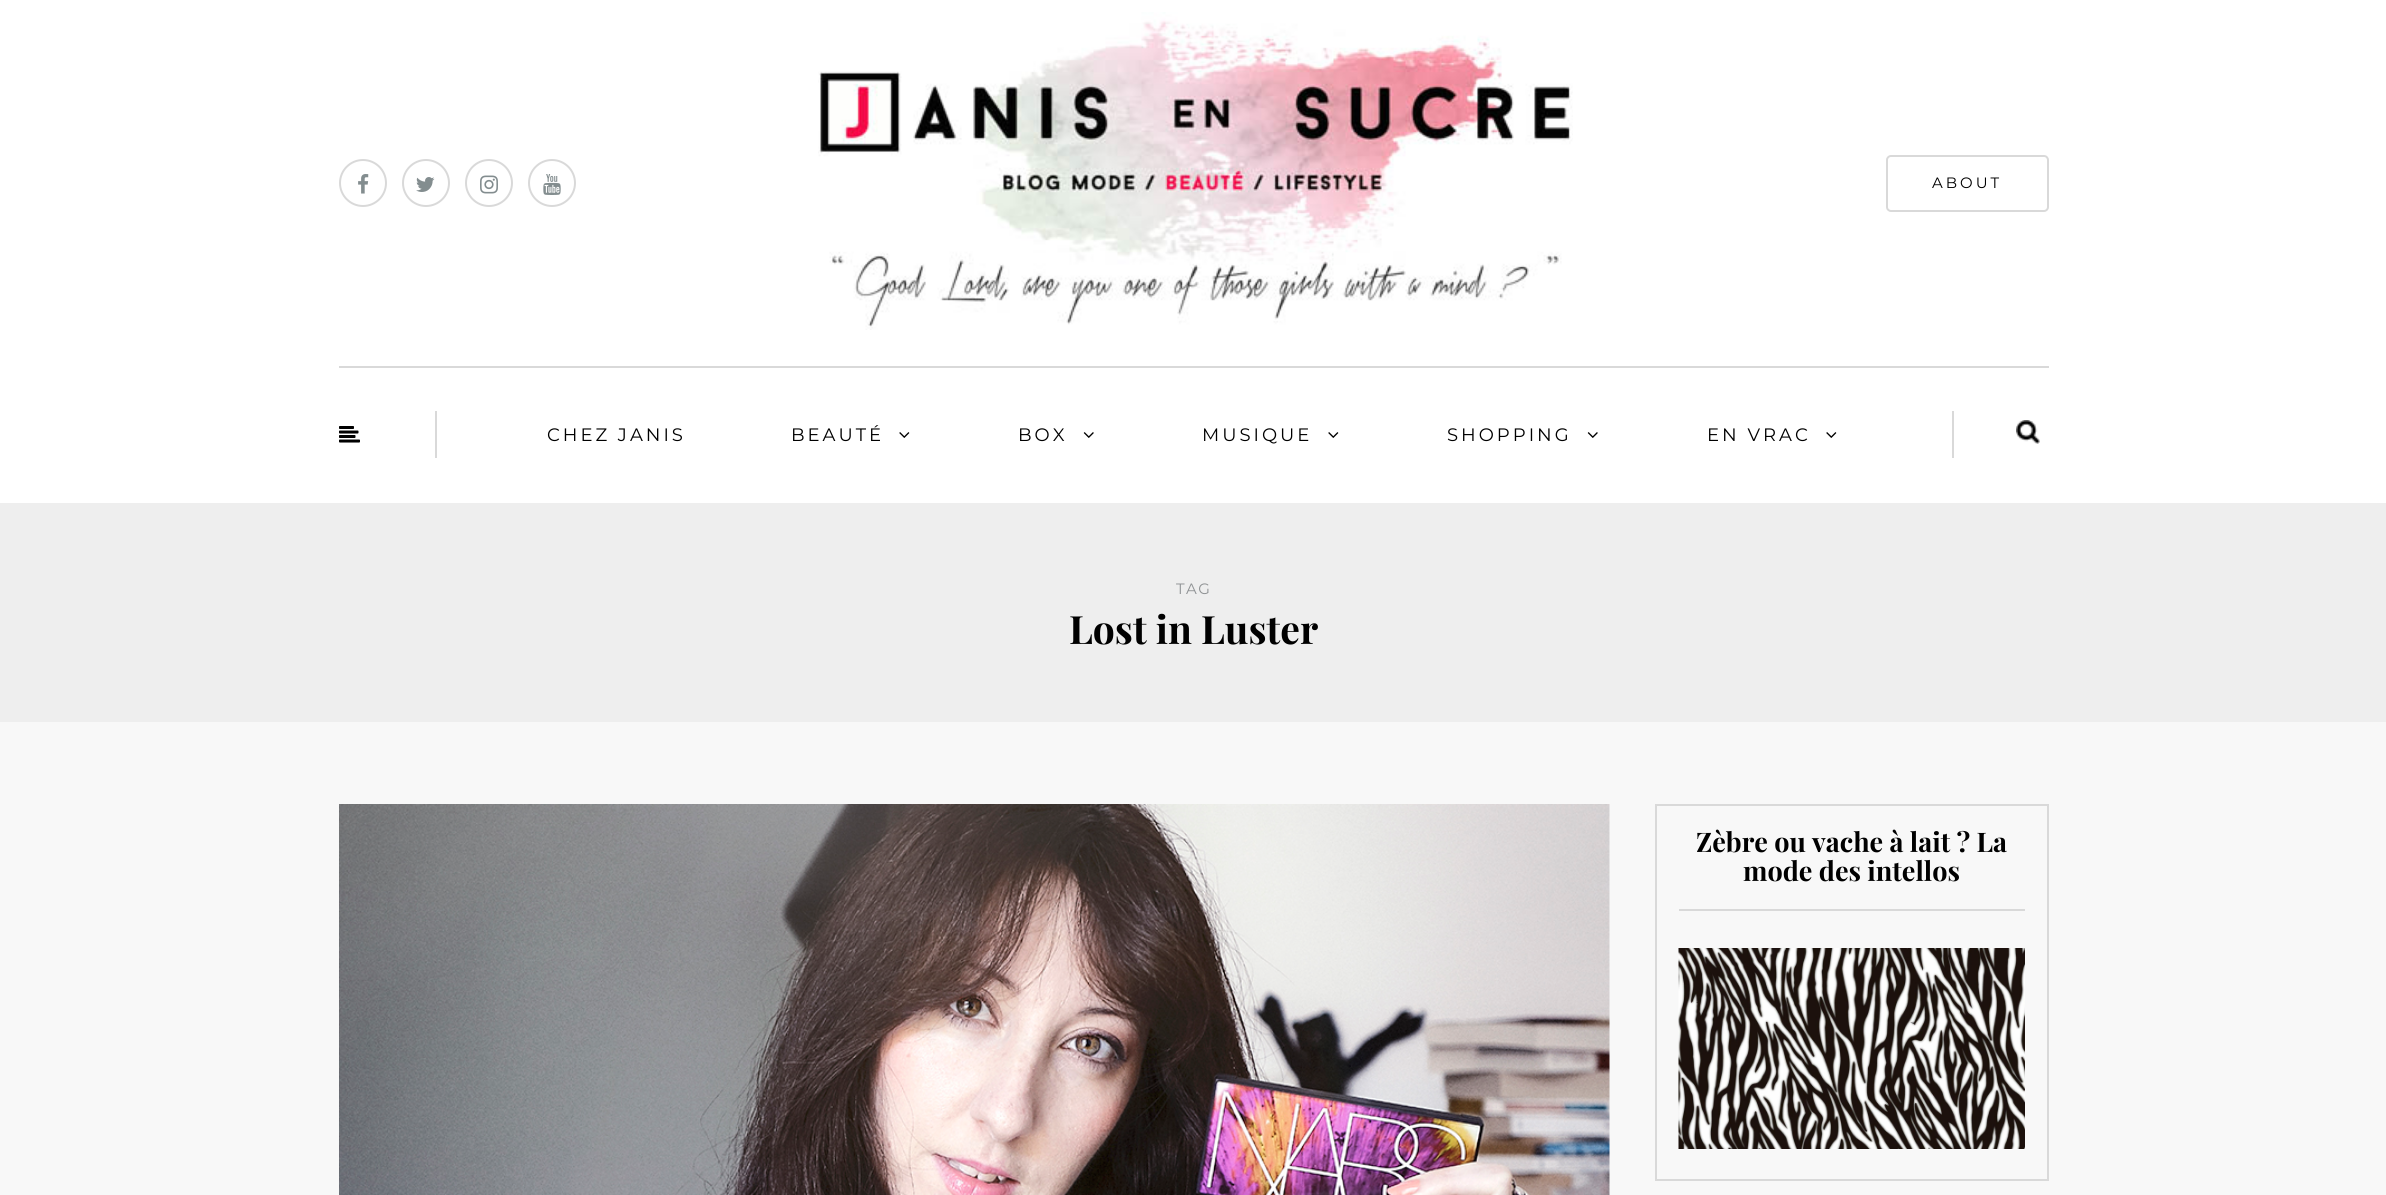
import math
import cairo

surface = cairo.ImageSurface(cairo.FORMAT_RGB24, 2386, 1195)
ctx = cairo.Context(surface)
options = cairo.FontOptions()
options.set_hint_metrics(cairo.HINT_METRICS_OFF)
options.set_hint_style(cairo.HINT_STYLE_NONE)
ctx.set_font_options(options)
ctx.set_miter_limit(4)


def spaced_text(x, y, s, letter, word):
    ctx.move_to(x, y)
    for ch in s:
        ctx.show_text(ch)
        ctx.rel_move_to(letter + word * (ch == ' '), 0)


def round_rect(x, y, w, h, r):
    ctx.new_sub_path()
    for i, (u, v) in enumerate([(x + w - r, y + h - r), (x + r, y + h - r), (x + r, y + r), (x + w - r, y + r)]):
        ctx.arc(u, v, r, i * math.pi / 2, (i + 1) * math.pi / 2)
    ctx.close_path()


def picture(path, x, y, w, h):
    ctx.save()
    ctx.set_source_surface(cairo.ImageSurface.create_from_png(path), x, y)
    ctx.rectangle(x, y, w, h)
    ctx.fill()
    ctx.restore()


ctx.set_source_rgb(0.969, 0.969, 0.969)
ctx.paint()
ctx.set_source_rgb(1, 1, 1)
ctx.rectangle(0, 0, 2386, 503)
ctx.fill()
picture("img1.png", 818, 12, 755, 318)
ctx.arc(363, 183, 23, 0, 2 * math.pi)
ctx.set_source_rgb(0.851, 0.851, 0.851)
ctx.stroke()
picture("img2.png", 358, 174, 11, 20)
ctx.arc(426, 183, 23, 0, 2 * math.pi)
ctx.stroke()
picture("img3.png", 416, 177, 19, 15)
ctx.arc(489, 183, 23, 0, 2 * math.pi)
ctx.stroke()
picture("img4.png", 480, 175, 18, 19)
ctx.arc(552, 183, 23, 0, 2 * math.pi)
ctx.stroke()
picture("img5.png", 543, 174, 18, 21)
round_rect(1887, 156, 161, 55, 4)
ctx.stroke()
ctx.select_font_face("Montserrat Thin")
ctx.set_font_size(15)
ctx.set_source_rgb(0, 0, 0)
spaced_text(1932, 188, "ABOUT", 3, 0)
ctx.set_source_rgb(0.851, 0.851, 0.851)
ctx.rectangle(435, 411, 2, 47)
ctx.fill()
picture("img6.png", 339, 426, 21, 17)
ctx.rectangle(339, 366, 1710, 2)
ctx.fill()
ctx.set_font_size(18)
ctx.set_source_rgb(0, 0, 0)
spaced_text(547, 441, "CHEZ JANIS", 3, 0)
spaced_text(791, 441, "BEAUTÉ", 3, 0)
picture("img7.png", 899, 432, 11, 6)
spaced_text(1018, 441, "BOX", 3, 0)
picture("img8.png", 1083, 432, 11, 6)
spaced_text(1202, 441, "MUSIQUE", 3, 0)
picture("img7.png", 1328, 432, 11, 6)
spaced_text(1447, 441, "SHOPPING", 3, 0)
picture("img8.png", 1587, 432, 11, 6)
spaced_text(1707, 441, "EN VRAC", 3, 0)
picture("img7.png", 1826, 432, 11, 6)
ctx.set_source_rgb(0.851, 0.851, 0.851)
ctx.rectangle(1952, 411, 2, 47)
ctx.fill()
picture("img9.png", 2016, 420, 24, 24)
ctx.set_source_rgb(0.933, 0.933, 0.933)
ctx.rectangle(0, 503, 2386, 219)
ctx.fill()
ctx.set_font_size(15)
ctx.set_source_rgb(0.561, 0.573, 0.58)
spaced_text(1176, 594, "TAG", 1.5, 0)
ctx.select_font_face("Playfair Display", cairo.FONT_SLANT_NORMAL, cairo.FONT_WEIGHT_BOLD)
ctx.set_font_size(39)
ctx.set_source_rgb(0, 0, 0)
ctx.move_to(1069, 644)
ctx.show_text("Lost in Luster")
picture("img10.png", 339, 804, 1271, 391)
ctx.rectangle(1656, 805, 392, 375)
ctx.set_source_rgb(0.851, 0.851, 0.851)
ctx.stroke()
ctx.rectangle(1679, 909, 346, 2)
ctx.fill()
ctx.set_font_size(27)
ctx.set_source_rgb(0, 0, 0)
ctx.move_to(1696, 852)
ctx.show_text("Zèbre ou vache à lait ? La")
ctx.move_to(1743, 881)
ctx.show_text("mode des intellos")
picture("img11.png", 1678, 948, 347, 201)
surface.write_to_png("page.png")
